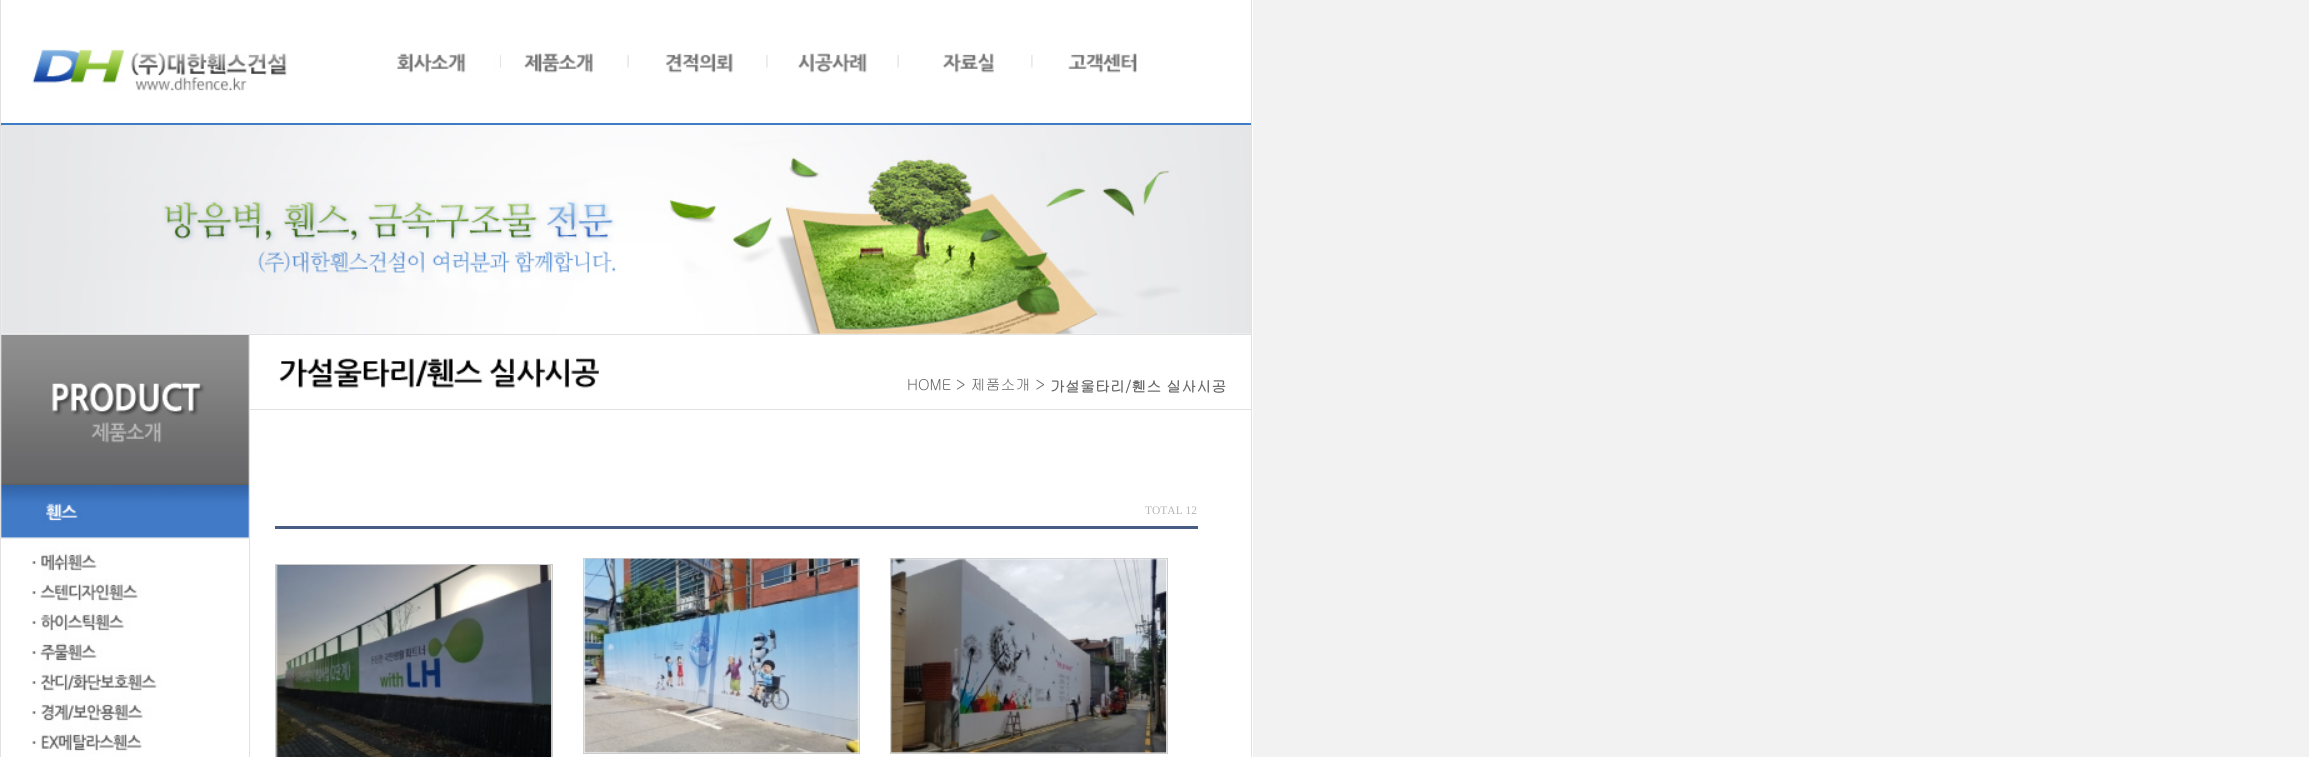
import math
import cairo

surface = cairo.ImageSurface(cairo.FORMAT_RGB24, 2309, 757)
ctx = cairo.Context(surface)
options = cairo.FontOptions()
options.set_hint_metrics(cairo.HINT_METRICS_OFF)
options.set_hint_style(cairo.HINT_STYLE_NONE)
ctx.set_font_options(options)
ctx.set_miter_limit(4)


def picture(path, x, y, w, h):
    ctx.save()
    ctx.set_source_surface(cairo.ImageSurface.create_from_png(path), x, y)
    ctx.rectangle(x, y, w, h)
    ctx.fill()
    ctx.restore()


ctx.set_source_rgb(0.949, 0.949, 0.949)
ctx.paint()
ctx.set_source_rgb(1, 1, 1)
ctx.rectangle(1, 0, 1252, 757)
ctx.fill()
ctx.set_source_rgb(0.882, 0.882, 0.882)
ctx.rectangle(1251, 0, 1, 757)
ctx.fill()
ctx.rectangle(0, 0, 1, 757)
ctx.fill()
ctx.set_source_rgb(0.243, 0.486, 0.773)
ctx.rectangle(1, 123, 1250, 3)
ctx.fill()
picture("img1.png", 32, 49, 255, 42)
picture("img2.png", 397, 53, 105, 20)
picture("img3.png", 501, 53, 128, 20)
picture("img4.png", 665, 53, 103, 20)
picture("img5.png", 798, 53, 101, 20)
picture("img6.png", 942, 53, 91, 20)
picture("img7.png", 1068, 53, 69, 20)
ctx.set_source_rgb(0.882, 0.882, 0.882)
ctx.rectangle(1, 334, 1250, 1)
ctx.fill()
picture("img8.png", 1, 125, 1250, 209)
picture("img9.png", 1, 335, 248, 150)
ctx.rectangle(1, 538, 249, 1)
ctx.fill()
picture("img10.png", 1, 485, 248, 53)
picture("img11.png", 1, 538, 248, 217)
ctx.rectangle(249, 335, 1, 422)
ctx.fill()
ctx.rectangle(250, 409, 1001, 1)
ctx.fill()
picture("img12.png", 279, 358, 320, 30)
ctx.select_font_face("Gulim")
ctx.set_font_size(15)
ctx.set_source_rgb(0.4, 0.4, 0.4)
ctx.move_to(907, 390)
ctx.show_text("HOME > 제품소개 >")
ctx.select_font_face("Gulim", cairo.FONT_SLANT_NORMAL, cairo.FONT_WEIGHT_BOLD)
ctx.move_to(1050, 392)
ctx.show_text("가설울타리/휀스 실사시공")
ctx.select_font_face("Liberation Serif")
ctx.set_font_size(11.5)
ctx.set_source_rgb(0.71, 0.71, 0.71)
ctx.move_to(1145, 514)
ctx.show_text("TOTAL 12")
ctx.set_source_rgb(0.286, 0.365, 0.518)
ctx.rectangle(275, 526, 923, 3)
ctx.fill()
ctx.rectangle(275.5, 564.5, 277, 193)
ctx.set_source_rgb(0.8, 0.8, 0.8)
ctx.set_line_width(1)
ctx.stroke()
picture("img13.png", 276, 565, 276, 192)
ctx.rectangle(583.5, 558.5, 276, 195)
ctx.stroke()
picture("img14.png", 583, 558, 276, 195)
ctx.rectangle(890.5, 558.5, 277, 195)
ctx.stroke()
picture("img15.png", 891, 558, 276, 195)
surface.write_to_png("page.png")
